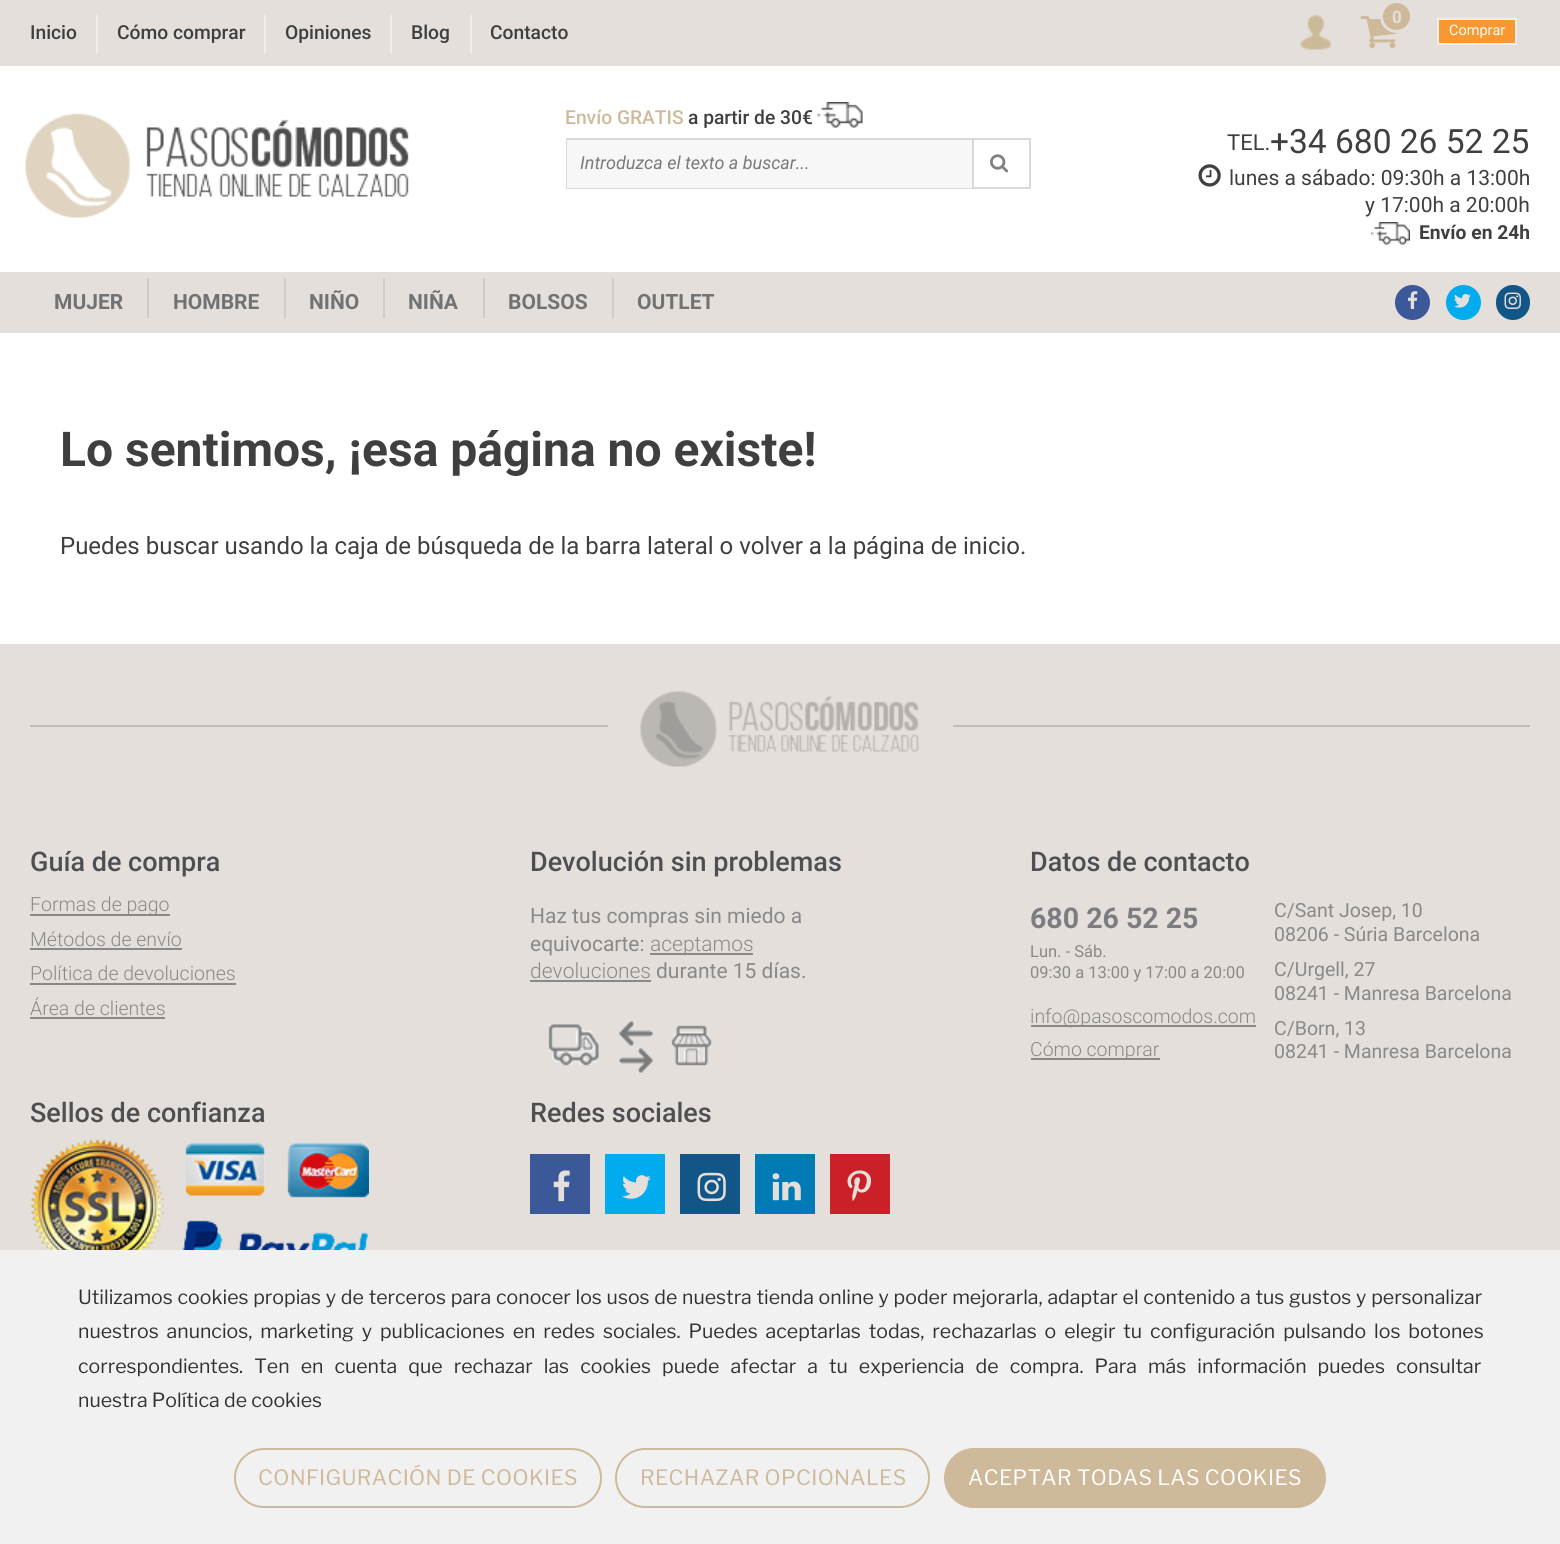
import math
import cairo

surface = cairo.ImageSurface(cairo.FORMAT_RGB24, 1560, 1544)
ctx = cairo.Context(surface)
options = cairo.FontOptions()
options.set_hint_metrics(cairo.HINT_METRICS_OFF)
options.set_hint_style(cairo.HINT_STYLE_NONE)
ctx.set_font_options(options)
ctx.set_miter_limit(4)


def spaced_text(x, y, s, letter, word):
    ctx.move_to(x, y)
    for ch in s:
        ctx.show_text(ch)
        ctx.rel_move_to(letter + word * (ch == ' '), 0)


def round_rect(x, y, w, h, r):
    ctx.new_sub_path()
    for i, (u, v) in enumerate([(x + w - r, y + h - r), (x + r, y + h - r), (x + r, y + r), (x + w - r, y + r)]):
        ctx.arc(u, v, r, i * math.pi / 2, (i + 1) * math.pi / 2)
    ctx.close_path()


def picture(path, x, y, w, h):
    ctx.save()
    ctx.set_source_surface(cairo.ImageSurface.create_from_png(path), x, y)
    ctx.rectangle(x, y, w, h)
    ctx.fill()
    ctx.restore()


ctx.set_source_rgb(1, 1, 1)
ctx.paint()
ctx.set_source_rgb(0.894, 0.875, 0.859)
ctx.rectangle(0, 0, 1560, 66)
ctx.fill()
ctx.select_font_face("Roboto Medium")
ctx.set_font_size(19.25)
ctx.set_source_rgb(0.247, 0.247, 0.247)
ctx.move_to(30, 39)
ctx.show_text("Inicio")
ctx.set_source_rgb(0.933, 0.933, 0.933)
ctx.rectangle(96, 15, 2, 38)
ctx.fill()
ctx.set_source_rgb(0.247, 0.247, 0.247)
ctx.move_to(117, 39)
ctx.show_text("Cómo comprar")
ctx.set_source_rgb(0.933, 0.933, 0.933)
ctx.rectangle(264, 15, 2, 38)
ctx.fill()
ctx.set_source_rgb(0.247, 0.247, 0.247)
ctx.move_to(285, 39)
ctx.show_text("Opiniones")
ctx.set_source_rgb(0.933, 0.933, 0.933)
ctx.rectangle(390, 15, 2, 38)
ctx.fill()
ctx.set_source_rgb(0.247, 0.247, 0.247)
ctx.move_to(411, 39)
ctx.show_text("Blog")
ctx.set_source_rgb(0.933, 0.933, 0.933)
ctx.rectangle(470, 15, 2, 38)
ctx.fill()
ctx.set_source_rgb(0.247, 0.247, 0.247)
ctx.move_to(490, 39)
ctx.show_text("Contacto")
picture("img1.png", 1300, 15, 31, 35)
picture("img2.png", 1360, 16, 39, 33)
ctx.set_source_rgb(0.808, 0.725, 0.604)
ctx.arc(1396.5, 16.5, 15, 0, 2 * math.pi)
ctx.fill_preserve()
ctx.set_source_rgb(0.894, 0.875, 0.859)
ctx.set_line_width(3)
ctx.stroke()
ctx.select_font_face("Roboto", cairo.FONT_SLANT_NORMAL, cairo.FONT_WEIGHT_BOLD)
ctx.set_font_size(17)
ctx.move_to(1392, 23)
ctx.show_text("0")
ctx.set_source_rgb(0.976, 0.592, 0.188)
ctx.rectangle(1438, 19, 78, 25)
ctx.fill_preserve()
ctx.set_source_rgb(0.933, 0.933, 0.933)
ctx.set_line_width(2)
ctx.stroke()
ctx.select_font_face("Roboto")
ctx.set_font_size(14.5)
ctx.set_source_rgb(1, 1, 1)
ctx.move_to(1449, 35)
ctx.show_text("Comprar")
picture("img3.png", 25, 113, 384, 105)
ctx.select_font_face("Roboto Medium")
ctx.set_font_size(19.25)
ctx.set_source_rgb(0.808, 0.725, 0.604)
ctx.move_to(565, 124)
ctx.show_text("Envío GRATIS")
ctx.set_source_rgb(0.247, 0.247, 0.247)
ctx.move_to(688, 124)
ctx.show_text("a partir de 30€")
picture("img4.png", 817, 102, 46, 26)
ctx.rectangle(567, 139, 463, 49)
ctx.set_source_rgb(0.851, 0.851, 0.851)
ctx.stroke()
ctx.set_source_rgb(0.965, 0.965, 0.965)
ctx.rectangle(567, 140, 405, 48)
ctx.fill()
ctx.set_source_rgb(0.851, 0.851, 0.851)
ctx.rectangle(972, 140, 2, 48)
ctx.fill()
ctx.select_font_face("Roboto", cairo.FONT_SLANT_ITALIC)
ctx.set_font_size(18)
ctx.set_source_rgb(0.478, 0.478, 0.478)
ctx.move_to(580, 169)
ctx.show_text("Introduzca el texto a buscar...")
picture("img5.png", 990, 154, 19, 19)
ctx.select_font_face("Roboto")
ctx.set_font_size(22)
ctx.set_source_rgb(0.247, 0.247, 0.247)
ctx.move_to(1227, 150)
ctx.show_text("TEL.")
ctx.set_font_size(33.5)
ctx.move_to(1270, 153)
ctx.show_text("+34 680 26 52 25")
picture("img6.png", 1198, 164, 23, 23)
ctx.set_font_size(21)
ctx.move_to(1229, 185)
ctx.show_text("lunes a sábado: 09:30h a 13:00h")
ctx.move_to(1365, 212)
ctx.show_text("y 17:00h a 20:00h")
picture("img7.png", 1371, 222, 39, 23)
ctx.select_font_face("Roboto", cairo.FONT_SLANT_NORMAL, cairo.FONT_WEIGHT_BOLD)
ctx.set_font_size(19.25)
ctx.move_to(1419, 239)
ctx.show_text("Envío en 24h")
ctx.set_source_rgb(0.894, 0.875, 0.859)
ctx.rectangle(0, 272, 1560, 61)
ctx.fill()
ctx.set_font_size(21)
ctx.set_source_rgb(0.447, 0.447, 0.447)
ctx.move_to(54, 309)
ctx.show_text("MUJER")
ctx.set_source_rgb(0.8, 0.8, 0.8)
ctx.rectangle(147, 278, 2, 40)
ctx.fill()
ctx.set_source_rgb(0.447, 0.447, 0.447)
ctx.move_to(173, 309)
ctx.show_text("HOMBRE")
ctx.set_source_rgb(0.8, 0.8, 0.8)
ctx.rectangle(284, 278, 2, 40)
ctx.fill()
ctx.set_source_rgb(0.447, 0.447, 0.447)
ctx.move_to(309, 309)
ctx.show_text("NIÑO")
ctx.set_source_rgb(0.8, 0.8, 0.8)
ctx.rectangle(383, 278, 2, 40)
ctx.fill()
ctx.set_source_rgb(0.447, 0.447, 0.447)
ctx.move_to(408, 309)
ctx.show_text("NIÑA")
ctx.set_source_rgb(0.8, 0.8, 0.8)
ctx.rectangle(483, 278, 2, 40)
ctx.fill()
ctx.set_source_rgb(0.447, 0.447, 0.447)
ctx.move_to(508, 309)
ctx.show_text("BOLSOS")
ctx.set_source_rgb(0.8, 0.8, 0.8)
ctx.rectangle(612, 278, 2, 40)
ctx.fill()
ctx.set_source_rgb(0.447, 0.447, 0.447)
ctx.move_to(637, 309)
ctx.show_text("OUTLET")
ctx.set_source_rgb(0.231, 0.349, 0.596)
ctx.new_path()
ctx.arc(1412.5, 302.5, 17.5, 0, 2 * math.pi)
ctx.fill()
picture("img8.png", 1408, 291, 10, 18)
ctx.set_source_rgb(0, 0.675, 0.929)
ctx.arc(1463.5, 302.5, 17.5, 0, 2 * math.pi)
ctx.fill()
picture("img9.png", 1454, 293, 17, 15)
ctx.set_source_rgb(0.071, 0.337, 0.533)
round_rect(1496, 285, 34, 35, 17)
ctx.fill()
picture("img10.png", 1504, 292, 17, 17)
ctx.set_font_size(48)
ctx.set_source_rgb(0.247, 0.247, 0.247)
ctx.move_to(60, 466)
ctx.show_text("Lo sentimos, ¡esa página no existe!")
ctx.select_font_face("Roboto")
ctx.set_font_size(24)
ctx.move_to(60, 554)
ctx.show_text("Puedes buscar usando la caja de búsqueda de la barra lateral o volver a la página de inicio.")
ctx.set_source_rgb(0.894, 0.875, 0.859)
ctx.rectangle(0, 644, 1560, 606)
ctx.fill()
ctx.set_source_rgb(0.761, 0.741, 0.729)
ctx.rectangle(30, 725, 1500, 2)
ctx.fill()
ctx.set_source_rgb(0.894, 0.875, 0.859)
ctx.rectangle(608, 725, 345, 2)
ctx.fill()
picture("img11.png", 640, 691, 279, 76)
ctx.select_font_face("Roboto Medium")
ctx.set_font_size(27)
ctx.set_source_rgb(0.31, 0.31, 0.318)
ctx.move_to(30, 871)
ctx.show_text("Guía de compra")
ctx.set_source_rgb(0.537, 0.537, 0.537)
ctx.rectangle(30, 914, 140, 2)
ctx.fill()
ctx.select_font_face("Roboto Light")
ctx.set_font_size(19.5)
ctx.move_to(30, 911)
ctx.show_text("Formas de pago")
ctx.move_to(30, 946)
ctx.show_text("Métodos de envío")
ctx.rectangle(30, 948, 152, 2)
ctx.fill()
ctx.move_to(30, 980)
ctx.show_text("Política de devoluciones")
ctx.rectangle(30, 983, 206, 2)
ctx.fill()
ctx.move_to(30, 1015)
ctx.show_text("Área de clientes")
ctx.rectangle(30, 1017, 135, 2)
ctx.fill()
ctx.select_font_face("Roboto Medium")
ctx.set_font_size(27)
ctx.set_source_rgb(0.31, 0.31, 0.318)
ctx.move_to(530, 871)
ctx.show_text("Devolución sin problemas")
ctx.select_font_face("Roboto")
ctx.set_font_size(21)
ctx.set_source_rgb(0.537, 0.537, 0.537)
ctx.move_to(530, 923)
ctx.show_text("Haz tus compras sin miedo a")
ctx.move_to(530, 951)
ctx.show_text("equivocarte:")
ctx.rectangle(650, 953, 103, 2)
ctx.fill()
ctx.select_font_face("Roboto Light")
ctx.move_to(650, 951)
ctx.show_text("aceptamos")
ctx.move_to(530, 978)
ctx.show_text("devoluciones")
ctx.rectangle(530, 980, 121, 2)
ctx.fill()
ctx.select_font_face("Roboto")
ctx.move_to(656, 978)
ctx.show_text("durante 15 días.")
picture("img12.png", 548, 1021, 164, 52)
ctx.select_font_face("Roboto Medium")
ctx.set_font_size(27)
ctx.set_source_rgb(0.31, 0.31, 0.318)
ctx.move_to(1030, 871)
ctx.show_text("Datos de contacto")
ctx.select_font_face("Roboto", cairo.FONT_SLANT_NORMAL, cairo.FONT_WEIGHT_BOLD)
ctx.set_font_size(28.5)
ctx.set_source_rgb(0.49, 0.486, 0.506)
ctx.move_to(1030, 928)
ctx.show_text("680 26 52 25")
ctx.select_font_face("Roboto")
ctx.set_font_size(16.5)
ctx.set_source_rgb(0.537, 0.537, 0.537)
ctx.move_to(1030, 957)
ctx.show_text("Lun. - Sáb.")
ctx.move_to(1030, 978)
ctx.show_text("09:30 a 13:00 y 17:00 a 20:00")
ctx.rectangle(1031, 1025, 225, 2)
ctx.fill()
ctx.select_font_face("Roboto Light")
ctx.set_font_size(19.5)
ctx.move_to(1030, 1023)
ctx.show_text("info@pasoscomodos.com")
ctx.rectangle(1031, 1058, 129, 2)
ctx.fill()
ctx.move_to(1030, 1056)
ctx.show_text("Cómo comprar")
ctx.select_font_face("Roboto")
ctx.move_to(1274, 917)
ctx.show_text("C/Sant Josep, 10")
ctx.move_to(1274, 941)
ctx.show_text("08206 - Súria Barcelona")
ctx.move_to(1274, 976)
ctx.show_text("C/Urgell, 27")
ctx.move_to(1274, 1000)
ctx.show_text("08241 - Manresa Barcelona")
ctx.move_to(1274, 1035)
ctx.show_text("C/Born, 13")
ctx.move_to(1274, 1058)
ctx.show_text("08241 - Manresa Barcelona")
ctx.select_font_face("Roboto Medium")
ctx.set_font_size(27)
ctx.set_source_rgb(0.31, 0.31, 0.318)
ctx.move_to(30, 1122)
ctx.show_text("Sellos de confianza")
picture("img13.png", 31, 1139, 338, 111)
ctx.move_to(530, 1122)
ctx.show_text("Redes sociales")
ctx.set_source_rgb(0.231, 0.349, 0.596)
ctx.rectangle(530, 1154, 60, 60)
ctx.fill()
picture("img14.png", 553, 1170, 17, 32)
ctx.set_source_rgb(0, 0.675, 0.929)
ctx.rectangle(605, 1154, 60, 60)
ctx.fill()
picture("img15.png", 622, 1175, 29, 24)
ctx.set_source_rgb(0.071, 0.337, 0.533)
ctx.rectangle(680, 1154, 60, 60)
ctx.fill()
picture("img16.png", 697, 1172, 29, 30)
ctx.set_source_rgb(0, 0.482, 0.71)
ctx.rectangle(755, 1154, 60, 60)
ctx.fill()
picture("img17.png", 772, 1173, 29, 28)
ctx.set_source_rgb(0.796, 0.125, 0.153)
ctx.rectangle(830, 1154, 60, 60)
ctx.fill()
picture("img18.png", 847, 1170, 25, 31)
ctx.set_source_rgb(0.945, 0.945, 0.945)
ctx.rectangle(0, 1250, 1560, 294)
ctx.fill()
ctx.select_font_face("Libre Franklin")
ctx.set_font_size(19.5)
ctx.set_source_rgb(0.192, 0.192, 0.192)
spaced_text(78, 1304, "Utilizamos cookies propias y de terceros para conocer los usos de nuestra tienda online y poder mejorarla, adaptar el contenido a tus gustos y personalizar", 0, 0.6)
spaced_text(78, 1338, "nuestros anuncios, marketing y publicaciones en redes sociales. Puedes aceptarlas todas, rechazarlas o elegir tu configuración pulsando los botones", 0, 3.75)
spaced_text(78, 1373, "correspondientes. Ten en cuenta que rechazar las cookies puede afectar a tu experiencia de compra. Para más información puedes consultar", 0, 6.9)
ctx.move_to(78, 1407)
ctx.show_text("nuestra Política de cookies")
round_rect(235, 1449, 366, 58, 29)
ctx.set_source_rgb(0.808, 0.725, 0.604)
ctx.stroke()
ctx.set_font_size(21)
spaced_text(258, 1485, "CONFIGURACIÓN DE COOKIES", 0.4, 0)
round_rect(616, 1449, 313, 58, 29)
ctx.stroke()
spaced_text(640, 1485, "RECHAZAR OPCIONALES", 0.4, 0)
round_rect(945, 1449, 380, 58, 29)
ctx.fill_preserve()
ctx.stroke()
ctx.set_source_rgb(1, 1, 1)
spaced_text(968, 1485, "ACEPTAR TODAS LAS COOKIES", 0.4, 0)
surface.write_to_png("page.png")
